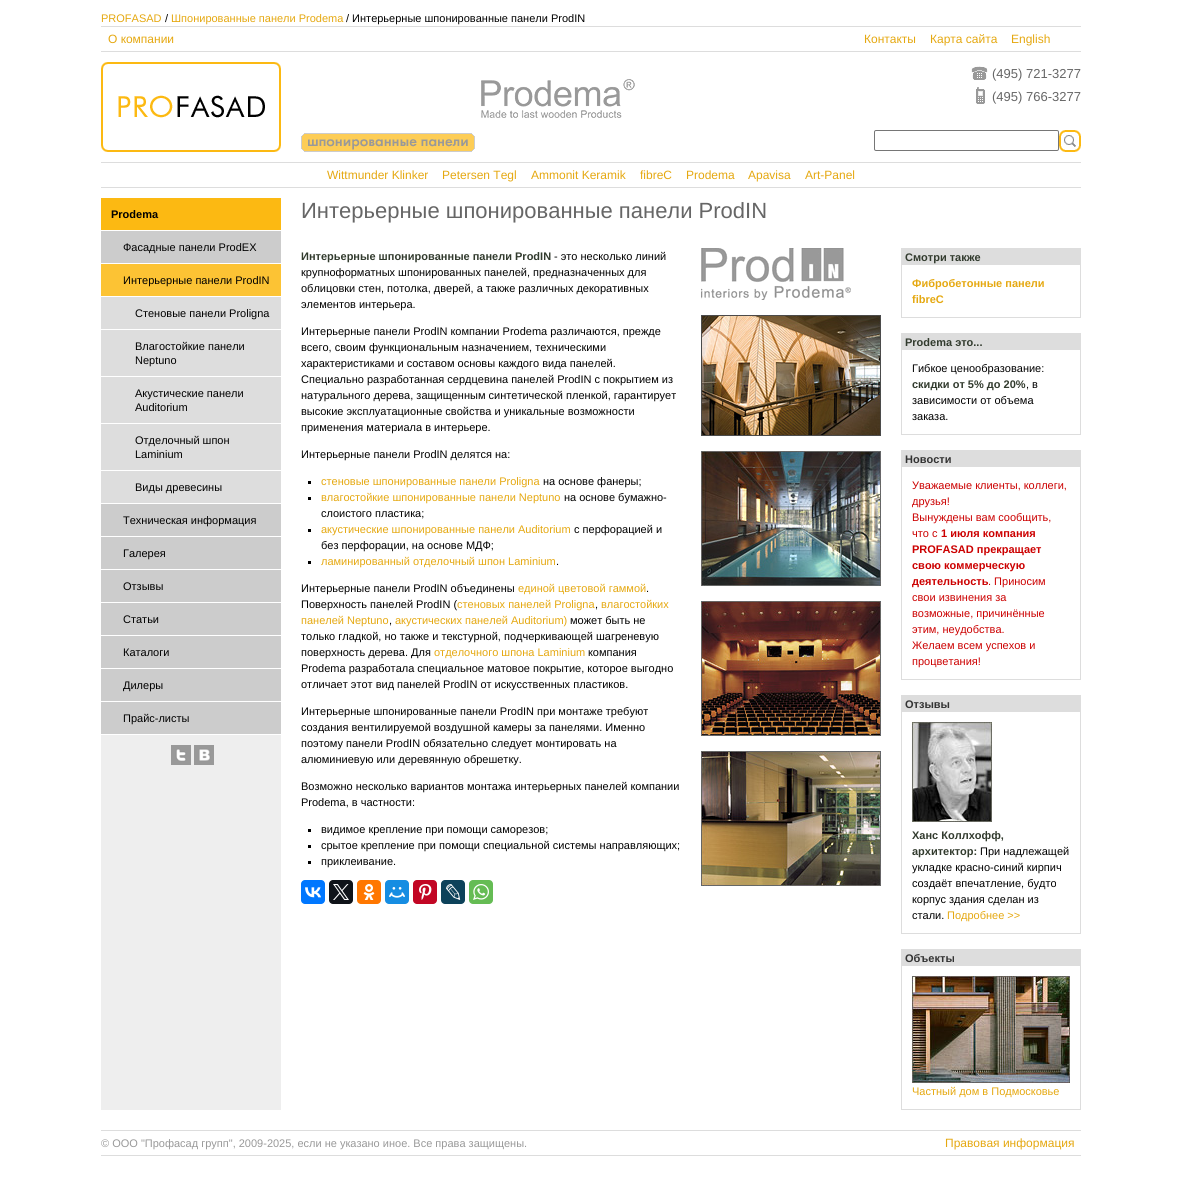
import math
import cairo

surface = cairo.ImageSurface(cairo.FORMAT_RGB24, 1182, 1182)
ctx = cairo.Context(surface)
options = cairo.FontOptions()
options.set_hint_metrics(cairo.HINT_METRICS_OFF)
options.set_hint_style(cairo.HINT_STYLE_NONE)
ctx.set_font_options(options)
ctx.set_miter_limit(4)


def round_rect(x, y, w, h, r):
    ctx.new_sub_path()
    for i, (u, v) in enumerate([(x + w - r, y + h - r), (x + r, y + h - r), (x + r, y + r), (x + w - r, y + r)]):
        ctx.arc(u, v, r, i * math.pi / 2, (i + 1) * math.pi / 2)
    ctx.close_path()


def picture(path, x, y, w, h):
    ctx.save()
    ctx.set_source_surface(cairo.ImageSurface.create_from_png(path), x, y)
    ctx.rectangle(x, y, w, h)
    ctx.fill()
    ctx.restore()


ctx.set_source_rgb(1, 1, 1)
ctx.paint()
ctx.select_font_face("Liberation Sans")
ctx.set_font_size(11)
ctx.set_source_rgb(0.898, 0.659, 0.063)
ctx.move_to(101, 22)
ctx.show_text("PROFASAD")
ctx.set_source_rgb(0, 0, 0)
ctx.move_to(165, 22)
ctx.show_text("/")
ctx.set_source_rgb(0.898, 0.659, 0.063)
ctx.move_to(171, 22)
ctx.show_text("Шпонированные панели Prodema")
ctx.set_source_rgb(0, 0, 0)
ctx.move_to(346, 22)
ctx.show_text("/ Интерьерные шпонированные панели ProdIN")
ctx.set_source_rgb(0.867, 0.867, 0.867)
ctx.rectangle(101, 26, 980, 1)
ctx.fill()
ctx.set_font_size(12)
ctx.set_source_rgb(0.898, 0.659, 0.063)
ctx.move_to(108, 43)
ctx.show_text("О компании")
ctx.move_to(864, 43)
ctx.show_text("Контакты")
ctx.move_to(930, 43)
ctx.show_text("Карта сайта")
ctx.move_to(1011, 43)
ctx.show_text("English")
ctx.set_source_rgb(0.867, 0.867, 0.867)
ctx.rectangle(101, 51, 980, 1)
ctx.fill()
picture("img1.png", 101, 62, 180, 90)
picture("img2.png", 301, 79, 334, 73)
picture("img3.png", 971, 66, 17, 14)
ctx.set_font_size(13)
ctx.set_source_rgb(0.4, 0.4, 0.4)
ctx.move_to(992, 78)
ctx.show_text("(495) 721-3277")
picture("img4.png", 976, 87, 9, 17)
ctx.move_to(992, 101)
ctx.show_text("(495) 766-3277")
round_rect(874.5, 130.5, 184, 20, 1.5)
ctx.set_source_rgb(0.463, 0.463, 0.463)
ctx.set_line_width(1)
ctx.stroke()
picture("img5.png", 1059, 130, 22, 22)
ctx.set_source_rgb(0.867, 0.867, 0.867)
ctx.rectangle(101, 162, 980, 1)
ctx.fill()
ctx.set_font_size(12)
ctx.set_source_rgb(0.898, 0.659, 0.063)
ctx.move_to(327, 179)
ctx.show_text("Wittmunder Klinker")
ctx.move_to(442, 179)
ctx.show_text("Petersen Tegl")
ctx.move_to(531, 179)
ctx.show_text("Ammonit Keramik")
ctx.move_to(640, 179)
ctx.show_text("fibreC")
ctx.move_to(686, 179)
ctx.show_text("Prodema")
ctx.move_to(748, 179)
ctx.show_text("Apavisa")
ctx.move_to(805, 179)
ctx.show_text("Art-Panel")
ctx.set_source_rgb(0.867, 0.867, 0.867)
ctx.rectangle(101, 187, 980, 1)
ctx.fill()
ctx.set_source_rgb(0.933, 0.933, 0.933)
ctx.rectangle(101, 735, 180, 375)
ctx.fill()
ctx.set_source_rgb(0.988, 0.725, 0.071)
ctx.rectangle(101, 198, 180, 32)
ctx.fill()
ctx.select_font_face("Liberation Sans", cairo.FONT_SLANT_NORMAL, cairo.FONT_WEIGHT_BOLD)
ctx.set_font_size(11)
ctx.set_source_rgb(0, 0, 0)
ctx.move_to(111, 218)
ctx.show_text("Prodema")
ctx.set_source_rgb(0.8, 0.8, 0.8)
ctx.rectangle(101, 231, 180, 32)
ctx.fill()
ctx.select_font_face("Liberation Sans")
ctx.set_source_rgb(0, 0, 0)
ctx.move_to(123, 251)
ctx.show_text("Фасадные панели ProdEX")
ctx.set_source_rgb(0.988, 0.765, 0.204)
ctx.rectangle(101, 264, 180, 32)
ctx.fill()
ctx.set_source_rgb(0, 0, 0)
ctx.move_to(123, 284)
ctx.show_text("Интерьерные панели ProdIN")
ctx.set_source_rgb(0.867, 0.867, 0.867)
ctx.rectangle(101, 297, 180, 32)
ctx.fill()
ctx.set_source_rgb(0, 0, 0)
ctx.move_to(135, 317)
ctx.show_text("Стеновые панели Proligna")
ctx.set_source_rgb(0.867, 0.867, 0.867)
ctx.rectangle(101, 330, 180, 46)
ctx.fill()
ctx.set_source_rgb(0, 0, 0)
ctx.move_to(135, 350)
ctx.show_text("Влагостойкие панели")
ctx.move_to(135, 364)
ctx.show_text("Neptuno")
ctx.set_source_rgb(0.867, 0.867, 0.867)
ctx.rectangle(101, 377, 180, 46)
ctx.fill()
ctx.set_source_rgb(0, 0, 0)
ctx.move_to(135, 397)
ctx.show_text("Акустические панели")
ctx.move_to(135, 411)
ctx.show_text("Auditorium")
ctx.set_source_rgb(0.867, 0.867, 0.867)
ctx.rectangle(101, 424, 180, 46)
ctx.fill()
ctx.set_source_rgb(0, 0, 0)
ctx.move_to(135, 444)
ctx.show_text("Отделочный шпон")
ctx.move_to(135, 458)
ctx.show_text("Laminium")
ctx.set_source_rgb(0.867, 0.867, 0.867)
ctx.rectangle(101, 471, 180, 32)
ctx.fill()
ctx.set_source_rgb(0, 0, 0)
ctx.move_to(135, 491)
ctx.show_text("Виды древесины")
ctx.set_source_rgb(0.8, 0.8, 0.8)
ctx.rectangle(101, 504, 180, 32)
ctx.fill()
ctx.set_source_rgb(0, 0, 0)
ctx.move_to(123, 524)
ctx.show_text("Техническая информация")
ctx.set_source_rgb(0.8, 0.8, 0.8)
ctx.rectangle(101, 537, 180, 32)
ctx.fill()
ctx.set_source_rgb(0, 0, 0)
ctx.move_to(123, 557)
ctx.show_text("Галерея")
ctx.set_source_rgb(0.8, 0.8, 0.8)
ctx.rectangle(101, 570, 180, 32)
ctx.fill()
ctx.set_source_rgb(0, 0, 0)
ctx.move_to(123, 590)
ctx.show_text("Отзывы")
ctx.set_source_rgb(0.8, 0.8, 0.8)
ctx.rectangle(101, 603, 180, 32)
ctx.fill()
ctx.set_source_rgb(0, 0, 0)
ctx.move_to(123, 623)
ctx.show_text("Статьи")
ctx.set_source_rgb(0.8, 0.8, 0.8)
ctx.rectangle(101, 636, 180, 32)
ctx.fill()
ctx.set_source_rgb(0, 0, 0)
ctx.move_to(123, 656)
ctx.show_text("Каталоги")
ctx.set_source_rgb(0.8, 0.8, 0.8)
ctx.rectangle(101, 669, 180, 32)
ctx.fill()
ctx.set_source_rgb(0, 0, 0)
ctx.move_to(123, 689)
ctx.show_text("Дилеры")
ctx.set_source_rgb(0.8, 0.8, 0.8)
ctx.rectangle(101, 702, 180, 32)
ctx.fill()
ctx.set_source_rgb(0, 0, 0)
ctx.move_to(123, 722)
ctx.show_text("Прайс-листы")
picture("img6.png", 171, 745, 20, 20)
picture("img7.png", 194, 745, 20, 20)
ctx.set_font_size(22)
ctx.set_source_rgb(0.4, 0.4, 0.4)
ctx.move_to(301, 218)
ctx.show_text("Интерьерные шпонированные панели ProdIN")
ctx.select_font_face("Liberation Sans", cairo.FONT_SLANT_NORMAL, cairo.FONT_WEIGHT_BOLD)
ctx.set_font_size(11)
ctx.set_source_rgb(0.196, 0.231, 0.18)
ctx.move_to(301, 260)
ctx.show_text("Интерьерные шпонированные панели ProdIN")
ctx.select_font_face("Liberation Sans")
ctx.set_source_rgb(0, 0, 0)
ctx.move_to(554, 260)
ctx.show_text("- это несколько линий")
ctx.move_to(301, 276)
ctx.show_text("крупноформатных шпонированных панелей, предназначенных для")
ctx.move_to(301, 292)
ctx.show_text("облицовки стен, потолка, дверей, а также различных декоративных")
ctx.move_to(301, 308)
ctx.show_text("элементов интерьера.")
ctx.move_to(301, 335)
ctx.show_text("Интерьерные панели ProdIN компании Prodema различаются, прежде")
ctx.move_to(301, 351)
ctx.show_text("всего, своим функциональным назначением, техническими")
ctx.move_to(301, 367)
ctx.show_text("характеристиками и составом основы каждого вида панелей.")
ctx.move_to(301, 383)
ctx.show_text("Специально разработанная сердцевина панелей ProdIN с покрытием из")
ctx.move_to(301, 399)
ctx.show_text("натурального дерева, защищенным синтетической пленкой, гарантирует")
ctx.move_to(301, 415)
ctx.show_text("высокие эксплуатационные свойства и уникальные возможности")
ctx.move_to(301, 431)
ctx.show_text("применения материала в интерьере.")
ctx.move_to(301, 458)
ctx.show_text("Интерьерные панели ProdIN делятся на:")
ctx.rectangle(308, 481, 3, 3)
ctx.fill()
ctx.set_source_rgb(0.898, 0.659, 0.063)
ctx.move_to(321, 485)
ctx.show_text("стеновые шпонированные панели Proligna")
ctx.set_source_rgb(0, 0, 0)
ctx.move_to(543, 485)
ctx.show_text("на основе фанеры;")
ctx.rectangle(308, 497, 3, 3)
ctx.fill()
ctx.set_source_rgb(0.898, 0.659, 0.063)
ctx.move_to(321, 501)
ctx.show_text("влагостойкие шпонированные панели Neptuno")
ctx.set_source_rgb(0, 0, 0)
ctx.move_to(564, 501)
ctx.show_text("на основе бумажно-")
ctx.move_to(321, 517)
ctx.show_text("слоистого пластика;")
ctx.rectangle(308, 529, 3, 3)
ctx.fill()
ctx.set_source_rgb(0.898, 0.659, 0.063)
ctx.move_to(321, 533)
ctx.show_text("акустические шпонированные панели Auditorium")
ctx.set_source_rgb(0, 0, 0)
ctx.move_to(574, 533)
ctx.show_text("с перфорацией и")
ctx.move_to(321, 549)
ctx.show_text("без перфорации, на основе МДФ;")
ctx.rectangle(308, 561, 3, 3)
ctx.fill()
ctx.set_source_rgb(0.898, 0.659, 0.063)
ctx.move_to(321, 565)
ctx.show_text("ламинированный отделочный шпон Laminium")
ctx.set_source_rgb(0, 0, 0)
ctx.move_to(556, 565)
ctx.show_text(".")
ctx.move_to(301, 592)
ctx.show_text("Интерьерные панели ProdIN объединены")
ctx.set_source_rgb(0.898, 0.659, 0.063)
ctx.move_to(518, 592)
ctx.show_text("единой цветовой гаммой")
ctx.set_source_rgb(0, 0, 0)
ctx.move_to(646, 592)
ctx.show_text(".")
ctx.move_to(301, 608)
ctx.show_text("Поверхность панелей ProdIN (")
ctx.set_source_rgb(0.898, 0.659, 0.063)
ctx.move_to(457, 608)
ctx.show_text("стеновых панелей Proligna")
ctx.set_source_rgb(0, 0, 0)
ctx.move_to(595, 608)
ctx.show_text(",")
ctx.set_source_rgb(0.898, 0.659, 0.063)
ctx.move_to(601, 608)
ctx.show_text("влагостойких")
ctx.move_to(301, 624)
ctx.show_text("панелей Neptuno")
ctx.set_source_rgb(0, 0, 0)
ctx.move_to(389, 624)
ctx.show_text(",")
ctx.set_source_rgb(0.898, 0.659, 0.063)
ctx.move_to(395, 624)
ctx.show_text("акустических панелей Auditorium)")
ctx.set_source_rgb(0, 0, 0)
ctx.move_to(570, 624)
ctx.show_text("может быть не")
ctx.move_to(301, 640)
ctx.show_text("только гладкой, но также и текстурной, подчеркивающей шагреневую")
ctx.move_to(301, 656)
ctx.show_text("поверхность дерева. Для")
ctx.set_source_rgb(0.898, 0.659, 0.063)
ctx.move_to(434, 656)
ctx.show_text("отделочного шпона Laminium")
ctx.set_source_rgb(0, 0, 0)
ctx.move_to(588, 656)
ctx.show_text("компания")
ctx.move_to(301, 672)
ctx.show_text("Prodema разработала специальное матовое покрытие, которое выгодно")
ctx.move_to(301, 688)
ctx.show_text("отличает этот вид панелей ProdIN от искусственных пластиков.")
ctx.move_to(301, 715)
ctx.show_text("Интерьерные шпонированные панели ProdIN при монтаже требуют")
ctx.move_to(301, 731)
ctx.show_text("создания вентилируемой воздушной камеры за панелями. Именно")
ctx.move_to(301, 747)
ctx.show_text("поэтому панели ProdIN обязательно следует монтировать на")
ctx.move_to(301, 763)
ctx.show_text("алюминиевую или деревянную обрешетку.")
ctx.move_to(301, 790)
ctx.show_text("Возможно несколько вариантов монтажа интерьерных панелей компании")
ctx.move_to(301, 806)
ctx.show_text("Prodema, в частности:")
ctx.rectangle(308, 829, 3, 3)
ctx.fill()
ctx.move_to(321, 833)
ctx.show_text("видимое крепление при помощи саморезов;")
ctx.rectangle(308, 845, 3, 3)
ctx.fill()
ctx.move_to(321, 849)
ctx.show_text("срытое крепление при помощи специальной системы направляющих;")
ctx.rectangle(308, 861, 3, 3)
ctx.fill()
ctx.move_to(321, 865)
ctx.show_text("приклеивание.")
ctx.set_source_rgb(0, 0.467, 1)
round_rect(301, 880, 24, 24, 4)
ctx.fill()
picture("img8.png", 305, 887, 16, 11)
ctx.set_source_rgb(0.059, 0.078, 0.098)
round_rect(329, 880, 24, 24, 4)
ctx.fill()
picture("img9.png", 333, 884, 16, 16)
ctx.set_source_rgb(1, 0.467, 0)
round_rect(357, 880, 24, 24, 4)
ctx.fill()
picture("img10.png", 363, 884, 12, 16)
ctx.set_source_rgb(0.086, 0.553, 0.886)
round_rect(385, 880, 24, 24, 4)
ctx.fill()
picture("img11.png", 389, 887, 16, 11)
ctx.set_source_rgb(0.761, 0.027, 0.141)
round_rect(413, 880, 24, 24, 4)
ctx.fill()
picture("img12.png", 419, 884, 13, 16)
ctx.set_source_rgb(0.051, 0.259, 0.353)
round_rect(441, 880, 24, 24, 4)
ctx.fill()
picture("img13.png", 446, 884, 15, 16)
ctx.set_source_rgb(0.396, 0.737, 0.329)
round_rect(469, 880, 24, 24, 4)
ctx.fill()
picture("img14.png", 473, 884, 16, 16)
picture("img15.png", 701, 248, 150, 52)
picture("img16.png", 701, 315, 180, 121)
picture("img17.png", 701, 451, 180, 135)
picture("img18.png", 701, 601, 180, 135)
picture("img19.png", 701, 751, 180, 135)
ctx.set_source_rgb(0.867, 0.867, 0.867)
ctx.rectangle(901, 248, 180, 70)
ctx.fill()
ctx.select_font_face("Liberation Sans", cairo.FONT_SLANT_NORMAL, cairo.FONT_WEIGHT_BOLD)
ctx.set_source_rgb(0.196, 0.231, 0.18)
ctx.move_to(905, 261)
ctx.show_text("Смотри также")
ctx.set_source_rgb(1, 1, 1)
ctx.rectangle(902, 265, 178, 52)
ctx.fill()
ctx.set_source_rgb(0.898, 0.659, 0.063)
ctx.move_to(912, 287)
ctx.show_text("Фибробетонные панели")
ctx.move_to(912, 303)
ctx.show_text("fibreC")
ctx.set_source_rgb(0.867, 0.867, 0.867)
ctx.rectangle(901, 333, 180, 102)
ctx.fill()
ctx.set_source_rgb(0.196, 0.231, 0.18)
ctx.move_to(905, 346)
ctx.show_text("Prodema это...")
ctx.set_source_rgb(1, 1, 1)
ctx.rectangle(902, 350, 178, 84)
ctx.fill()
ctx.select_font_face("Liberation Sans")
ctx.set_source_rgb(0, 0, 0)
ctx.move_to(912, 372)
ctx.show_text("Гибкое ценообразование:")
ctx.select_font_face("Liberation Sans", cairo.FONT_SLANT_NORMAL, cairo.FONT_WEIGHT_BOLD)
ctx.set_source_rgb(0.196, 0.231, 0.18)
ctx.move_to(912, 388)
ctx.show_text("скидки от 5% до 20%")
ctx.select_font_face("Liberation Sans")
ctx.set_source_rgb(0, 0, 0)
ctx.move_to(1026, 388)
ctx.show_text(", в")
ctx.move_to(912, 404)
ctx.show_text("зависимости от объема")
ctx.move_to(912, 420)
ctx.show_text("заказа.")
ctx.set_source_rgb(0.867, 0.867, 0.867)
ctx.rectangle(901, 450, 180, 230)
ctx.fill()
ctx.select_font_face("Liberation Sans", cairo.FONT_SLANT_NORMAL, cairo.FONT_WEIGHT_BOLD)
ctx.set_source_rgb(0.2, 0.2, 0.2)
ctx.move_to(905, 463)
ctx.show_text("Новости")
ctx.set_source_rgb(1, 1, 1)
ctx.rectangle(902, 467, 178, 212)
ctx.fill()
ctx.select_font_face("Liberation Sans")
ctx.set_source_rgb(0.8, 0, 0)
ctx.move_to(912, 489)
ctx.show_text("Уважаемые клиенты, коллеги,")
ctx.move_to(912, 505)
ctx.show_text("друзья!")
ctx.move_to(912, 521)
ctx.show_text("Вынуждены вам сообщить,")
ctx.move_to(912, 537)
ctx.show_text("что с")
ctx.select_font_face("Liberation Sans", cairo.FONT_SLANT_NORMAL, cairo.FONT_WEIGHT_BOLD)
ctx.move_to(941, 537)
ctx.show_text("1 июля компания")
ctx.move_to(912, 553)
ctx.show_text("PROFASAD прекращает")
ctx.move_to(912, 569)
ctx.show_text("свою коммерческую")
ctx.move_to(912, 585)
ctx.show_text("деятельность")
ctx.select_font_face("Liberation Sans")
ctx.move_to(988, 585)
ctx.show_text(". Приносим")
ctx.move_to(912, 601)
ctx.show_text("свои извинения за")
ctx.move_to(912, 617)
ctx.show_text("возможные, причинённые")
ctx.move_to(912, 633)
ctx.show_text("этим, неудобства.")
ctx.move_to(912, 649)
ctx.show_text("Желаем всем успехов и")
ctx.move_to(912, 665)
ctx.show_text("процветания!")
ctx.set_source_rgb(0.867, 0.867, 0.867)
ctx.rectangle(901, 695, 180, 239)
ctx.fill()
ctx.select_font_face("Liberation Sans", cairo.FONT_SLANT_NORMAL, cairo.FONT_WEIGHT_BOLD)
ctx.set_source_rgb(0.2, 0.2, 0.2)
ctx.move_to(905, 708)
ctx.show_text("Отзывы")
ctx.set_source_rgb(1, 1, 1)
ctx.rectangle(902, 712, 178, 221)
ctx.fill()
picture("img20.png", 912, 722, 80, 100)
ctx.set_source_rgb(0.196, 0.231, 0.18)
ctx.move_to(912, 839)
ctx.show_text("Ханс Коллхофф,")
ctx.move_to(912, 855)
ctx.show_text("архитектор:")
ctx.select_font_face("Liberation Sans")
ctx.set_source_rgb(0, 0, 0)
ctx.move_to(980, 855)
ctx.show_text("При надлежащей")
ctx.move_to(912, 871)
ctx.show_text("укладке красно-синий кирпич")
ctx.move_to(912, 887)
ctx.show_text("создаёт впечатление, будто")
ctx.move_to(912, 903)
ctx.show_text("корпус здания сделан из")
ctx.move_to(912, 919)
ctx.show_text("стали.")
ctx.set_source_rgb(0.898, 0.659, 0.063)
ctx.move_to(947, 919)
ctx.show_text("Подробнее >>")
ctx.set_source_rgb(0.867, 0.867, 0.867)
ctx.rectangle(901, 949, 180, 161)
ctx.fill()
ctx.select_font_face("Liberation Sans", cairo.FONT_SLANT_NORMAL, cairo.FONT_WEIGHT_BOLD)
ctx.set_source_rgb(0.2, 0.2, 0.2)
ctx.move_to(905, 962)
ctx.show_text("Объекты")
ctx.set_source_rgb(1, 1, 1)
ctx.rectangle(902, 966, 178, 143)
ctx.fill()
picture("img21.png", 912, 976, 158, 107)
ctx.select_font_face("Liberation Sans")
ctx.set_source_rgb(0.898, 0.659, 0.063)
ctx.move_to(912, 1095)
ctx.show_text("Частный дом в Подмосковье")
ctx.set_source_rgb(0.867, 0.867, 0.867)
ctx.rectangle(101, 1130, 980, 1)
ctx.fill()
ctx.set_source_rgb(0.6, 0.6, 0.6)
ctx.move_to(101, 1147)
ctx.show_text("© ООО \"Профасад групп\", 2009-2025, если не указано иное. Все права защищены.")
ctx.set_font_size(12)
ctx.set_source_rgb(0.898, 0.659, 0.063)
ctx.move_to(945, 1147)
ctx.show_text("Правовая информация")
ctx.set_source_rgb(0.867, 0.867, 0.867)
ctx.rectangle(101, 1155, 980, 1)
ctx.fill()
surface.write_to_png("page.png")
